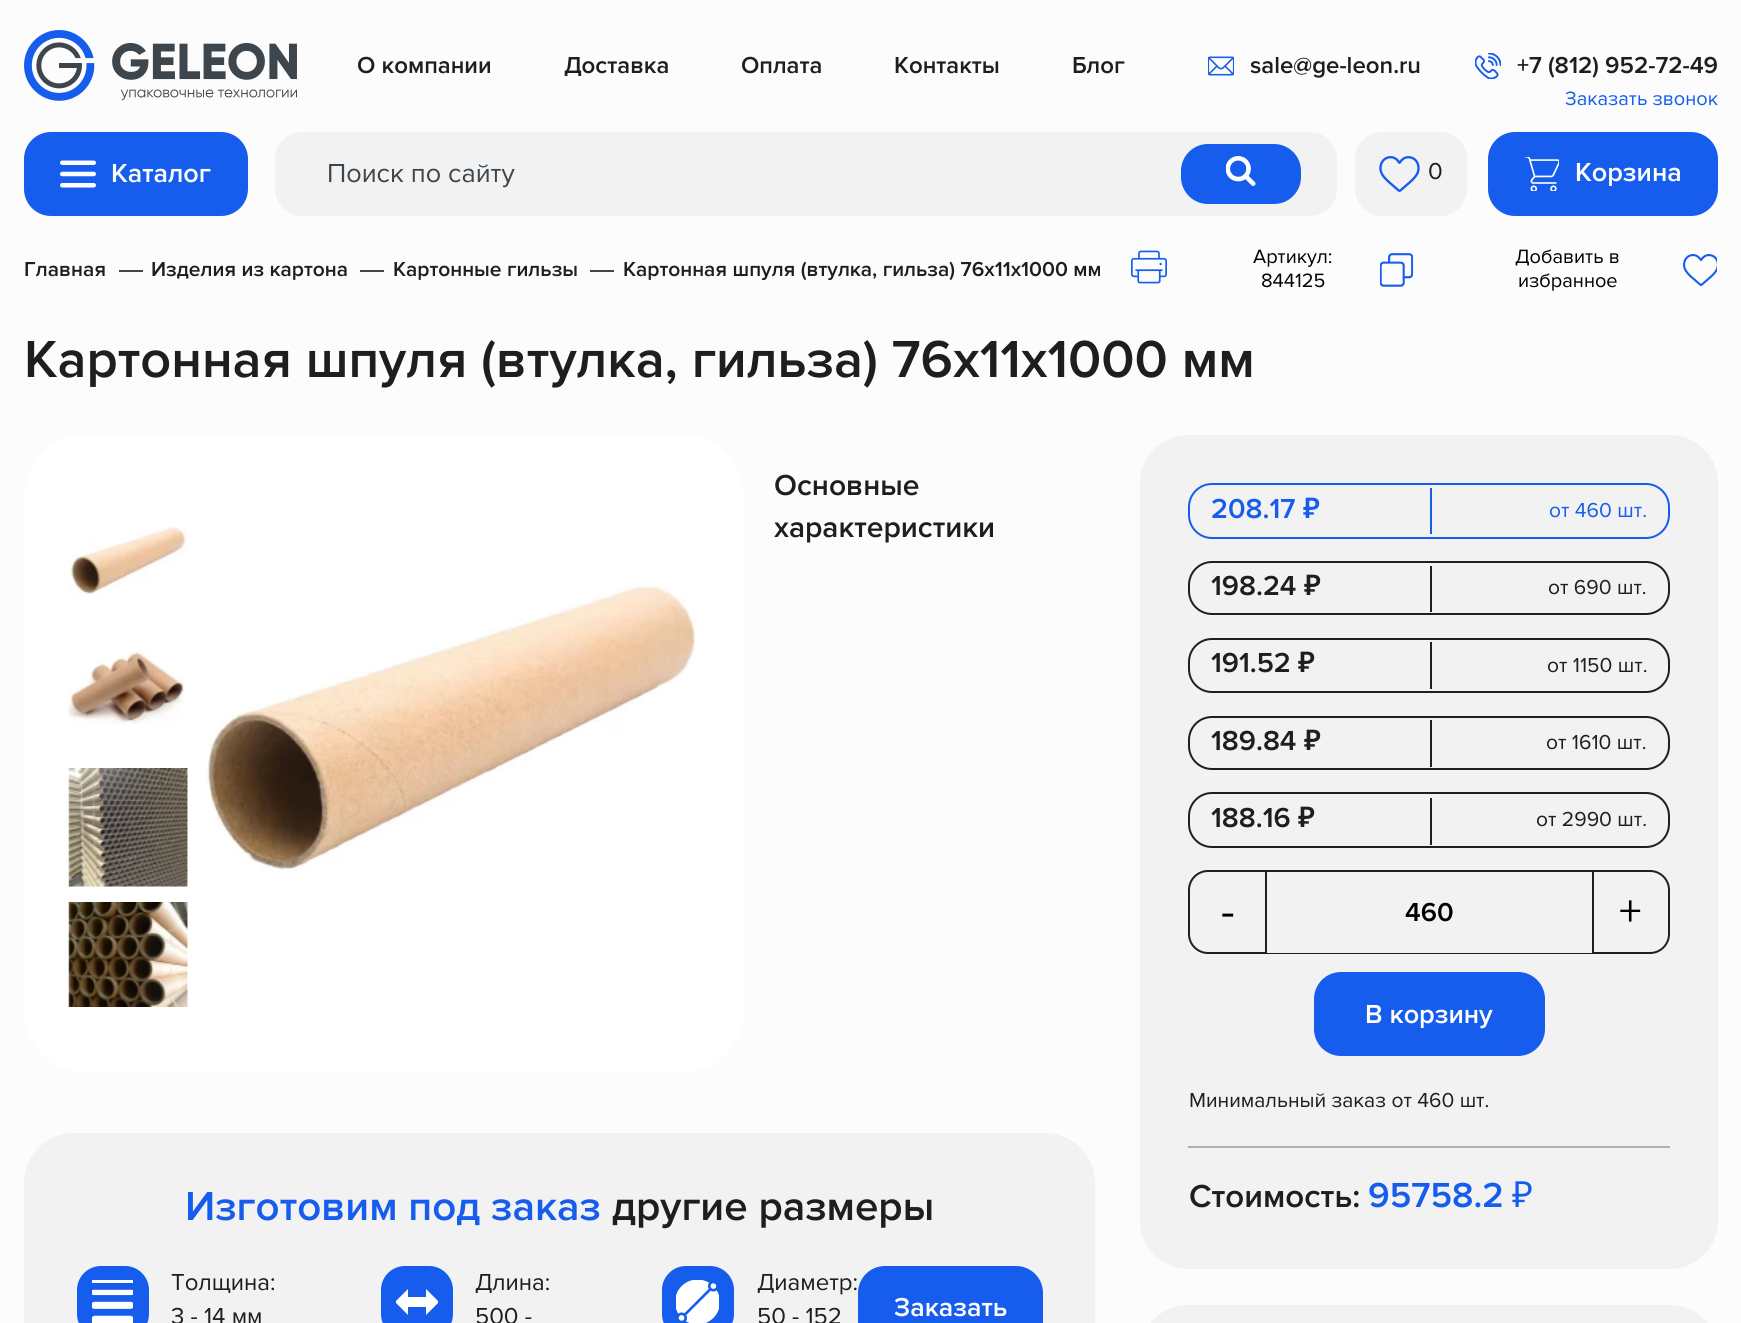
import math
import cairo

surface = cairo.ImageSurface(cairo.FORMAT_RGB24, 1741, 1323)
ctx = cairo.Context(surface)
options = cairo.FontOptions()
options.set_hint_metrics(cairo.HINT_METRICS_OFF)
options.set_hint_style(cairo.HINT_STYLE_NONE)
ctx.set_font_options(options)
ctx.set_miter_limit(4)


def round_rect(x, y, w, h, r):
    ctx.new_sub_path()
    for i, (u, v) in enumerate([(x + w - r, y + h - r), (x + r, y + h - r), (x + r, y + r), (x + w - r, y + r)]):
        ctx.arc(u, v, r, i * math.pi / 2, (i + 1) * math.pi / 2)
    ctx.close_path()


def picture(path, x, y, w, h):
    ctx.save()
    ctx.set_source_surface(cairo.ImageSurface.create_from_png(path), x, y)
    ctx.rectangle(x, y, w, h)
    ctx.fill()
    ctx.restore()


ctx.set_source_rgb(0.988, 0.988, 0.988)
ctx.paint()
picture("img1.png", 24, 30, 273, 71)
ctx.select_font_face("Proxima Nova SemiBold")
ctx.set_font_size(24)
ctx.set_source_rgb(0.118, 0.118, 0.118)
ctx.move_to(357, 73)
ctx.show_text("О компании")
ctx.move_to(564, 73)
ctx.show_text("Доставка")
ctx.move_to(741, 73)
ctx.show_text("Оплата")
ctx.move_to(894, 73)
ctx.show_text("Контакты")
ctx.move_to(1072, 73)
ctx.show_text("Блог")
picture("img2.png", 1208, 56, 26, 20)
ctx.move_to(1250, 73)
ctx.show_text("sale@ge-leon.ru")
picture("img3.png", 1475, 53, 26, 26)
ctx.move_to(1517, 73)
ctx.show_text("+7 (812) 952-72-49")
ctx.select_font_face("Proxima Nova")
ctx.set_font_size(20)
ctx.set_source_rgb(0.086, 0.365, 0.929)
ctx.move_to(1565, 105)
ctx.show_text("Заказать звонок")
round_rect(24, 132, 224, 84, 27)
ctx.fill()
picture("img4.png", 60, 160, 36, 28)
ctx.select_font_face("Proxima Nova SemiBold")
ctx.set_font_size(27)
ctx.set_source_rgb(1, 1, 1)
ctx.move_to(111, 182)
ctx.show_text("Каталог")
ctx.set_source_rgb(0.949, 0.949, 0.949)
round_rect(275, 132, 1062, 84, 27)
ctx.fill()
ctx.select_font_face("Proxima Nova")
ctx.set_source_rgb(0.239, 0.275, 0.302)
ctx.move_to(327, 182)
ctx.show_text("Поиск по сайту")
ctx.set_source_rgb(0.086, 0.365, 0.929)
round_rect(1181, 144, 120, 60, 27)
ctx.fill()
picture("img5.png", 1226, 156, 30, 30)
ctx.set_source_rgb(0.949, 0.949, 0.949)
round_rect(1355, 132, 112, 84, 27)
ctx.fill()
picture("img6.png", 1379, 156, 41, 36)
ctx.set_font_size(24)
ctx.set_source_rgb(0.118, 0.118, 0.118)
ctx.move_to(1428, 179)
ctx.show_text("0")
ctx.set_source_rgb(0.086, 0.365, 0.929)
round_rect(1488, 132, 230, 84, 27)
ctx.fill()
picture("img7.png", 1525, 157, 34, 34)
ctx.select_font_face("Proxima Nova SemiBold")
ctx.set_font_size(27)
ctx.set_source_rgb(1, 1, 1)
ctx.move_to(1575, 181)
ctx.show_text("Корзина")
ctx.set_font_size(21)
ctx.set_source_rgb(0.118, 0.118, 0.118)
ctx.move_to(24, 276)
ctx.show_text("Главная")
ctx.set_source_rgb(0.239, 0.275, 0.302)
ctx.rectangle(119, 270, 24, 2)
ctx.fill()
ctx.set_source_rgb(0.118, 0.118, 0.118)
ctx.move_to(151, 276)
ctx.show_text("Изделия из картона")
ctx.set_source_rgb(0.239, 0.275, 0.302)
ctx.rectangle(360, 270, 24, 2)
ctx.fill()
ctx.set_source_rgb(0.118, 0.118, 0.118)
ctx.move_to(393, 276)
ctx.show_text("Картонные гильзы")
ctx.set_source_rgb(0.239, 0.275, 0.302)
ctx.rectangle(590, 270, 24, 2)
ctx.fill()
ctx.set_source_rgb(0.118, 0.118, 0.118)
ctx.move_to(623, 276)
ctx.show_text("Картонная шпуля (втулка, гильза) 76x11x1000 мм")
picture("img8.png", 1131, 250, 36, 34)
ctx.select_font_face("Proxima Nova")
ctx.set_font_size(20)
ctx.set_source_rgb(0, 0, 0)
ctx.move_to(1253, 263)
ctx.show_text("Артикул:")
ctx.move_to(1261, 287)
ctx.show_text("844125")
picture("img9.png", 1380, 253, 33, 34)
ctx.move_to(1515, 263)
ctx.show_text("Добавить в")
ctx.move_to(1518, 287)
ctx.show_text("избранное")
picture("img10.png", 1683, 254, 34, 32)
ctx.select_font_face("Proxima Nova SemiBold")
ctx.set_font_size(54)
ctx.set_source_rgb(0.118, 0.118, 0.118)
ctx.move_to(24, 377)
ctx.show_text("Картонная шпуля (втулка, гильза) 76x11x1000 мм")
ctx.set_source_rgb(1, 1, 1)
round_rect(24, 435, 720, 638, 62)
ctx.fill()
picture("img11.png", 69, 526, 118, 69)
picture("img12.png", 68, 651, 117, 73)
picture("img13.png", 68, 768, 120, 119)
picture("img14.png", 68, 902, 120, 105)
picture("img15.png", 207, 585, 491, 287)
ctx.set_font_size(30)
ctx.set_source_rgb(0.118, 0.118, 0.118)
ctx.move_to(774, 495)
ctx.show_text("Основные")
ctx.move_to(774, 537)
ctx.show_text("характеристики")
ctx.set_source_rgb(0.949, 0.949, 0.949)
round_rect(24, 1133, 1071, 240, 50)
ctx.fill()
ctx.set_font_size(42)
ctx.set_source_rgb(0.086, 0.365, 0.929)
ctx.move_to(185, 1220)
ctx.show_text("Изготовим под заказ")
ctx.set_source_rgb(0.118, 0.118, 0.118)
ctx.move_to(612, 1220)
ctx.show_text("другие размеры")
ctx.set_source_rgb(0.086, 0.365, 0.929)
round_rect(77, 1266, 72, 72, 24)
ctx.fill()
picture("img16.png", 92, 1280, 41, 43)
ctx.select_font_face("Proxima Nova")
ctx.set_font_size(24)
ctx.set_source_rgb(0.118, 0.118, 0.118)
ctx.move_to(171, 1290)
ctx.show_text("Толщина:")
ctx.move_to(171, 1324)
ctx.show_text("3 - 14 мм")
ctx.set_source_rgb(0.086, 0.365, 0.929)
round_rect(381, 1266, 72, 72, 24)
ctx.fill()
ctx.save()
ctx.rectangle(396, 1280, 42, 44)
ctx.clip()
ctx.set_source_rgb(1, 1, 1)
ctx.new_path()
ctx.move_to(408, 1297)
ctx.line_to(408, 1289)
ctx.line_to(395, 1302)
ctx.line_to(408, 1315)
ctx.line_to(408, 1307)
ctx.line_to(426, 1307)
ctx.line_to(426, 1315)
ctx.line_to(439, 1302)
ctx.line_to(426, 1289)
ctx.line_to(426, 1297)
ctx.close_path()
ctx.fill()
ctx.restore()
ctx.set_source_rgb(0.118, 0.118, 0.118)
ctx.move_to(475, 1290)
ctx.show_text("Длина:")
ctx.move_to(475, 1324)
ctx.show_text("500 -")
ctx.set_source_rgb(0.086, 0.365, 0.929)
round_rect(662, 1266, 72, 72, 24)
ctx.fill()
picture("img17.png", 676, 1280, 43, 43)
ctx.set_source_rgb(0.118, 0.118, 0.118)
ctx.move_to(757, 1290)
ctx.show_text("Диаметр:")
ctx.move_to(757, 1324)
ctx.show_text("50 - 152")
ctx.set_source_rgb(0.086, 0.365, 0.929)
round_rect(858, 1266, 185, 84, 27)
ctx.fill()
ctx.select_font_face("Proxima Nova SemiBold")
ctx.set_font_size(27)
ctx.set_source_rgb(1, 1, 1)
ctx.move_to(894, 1316)
ctx.show_text("Заказать")
ctx.set_source_rgb(0.949, 0.949, 0.949)
round_rect(1140, 435, 578, 834, 48)
ctx.fill()
round_rect(1189, 484, 480, 54, 23)
ctx.set_source_rgb(0.086, 0.365, 0.929)
ctx.stroke()
ctx.set_font_size(28.5)
ctx.move_to(1211, 518)
ctx.show_text("208.17")
ctx.select_font_face("Noto Sans SemiBold")
ctx.move_to(1303, 518)
ctx.show_text("₽")
ctx.rectangle(1430, 488, 2, 46)
ctx.fill()
ctx.select_font_face("Proxima Nova")
ctx.set_font_size(21)
ctx.move_to(1549, 517)
ctx.show_text("от 460 шт.")
round_rect(1189, 562, 480, 52, 23)
ctx.set_source_rgb(0.114, 0.122, 0.133)
ctx.stroke()
ctx.select_font_face("Proxima Nova SemiBold")
ctx.set_font_size(28.5)
ctx.set_source_rgb(0.118, 0.118, 0.118)
ctx.move_to(1211, 595)
ctx.show_text("198.24")
ctx.select_font_face("Noto Sans SemiBold")
ctx.move_to(1304, 595)
ctx.show_text("₽")
ctx.set_source_rgb(0.114, 0.122, 0.133)
ctx.rectangle(1430, 566, 2, 46)
ctx.fill()
ctx.select_font_face("Proxima Nova")
ctx.set_font_size(21)
ctx.set_source_rgb(0.118, 0.118, 0.118)
ctx.move_to(1548, 594)
ctx.show_text("от 690 шт.")
round_rect(1189, 639, 480, 53, 23)
ctx.set_source_rgb(0.114, 0.122, 0.133)
ctx.stroke()
ctx.select_font_face("Proxima Nova SemiBold")
ctx.set_font_size(28.5)
ctx.set_source_rgb(0.118, 0.118, 0.118)
ctx.move_to(1211, 672)
ctx.show_text("191.52")
ctx.select_font_face("Noto Sans SemiBold")
ctx.move_to(1298, 672)
ctx.show_text("₽")
ctx.set_source_rgb(0.114, 0.122, 0.133)
ctx.rectangle(1430, 642, 2, 47)
ctx.fill()
ctx.select_font_face("Proxima Nova")
ctx.set_font_size(21)
ctx.set_source_rgb(0.118, 0.118, 0.118)
ctx.move_to(1547, 672)
ctx.show_text("от 1150 шт.")
round_rect(1189, 717, 480, 52, 23)
ctx.set_source_rgb(0.114, 0.122, 0.133)
ctx.stroke()
ctx.select_font_face("Proxima Nova SemiBold")
ctx.set_font_size(28.5)
ctx.set_source_rgb(0.118, 0.118, 0.118)
ctx.move_to(1211, 750)
ctx.show_text("189.84")
ctx.select_font_face("Noto Sans SemiBold")
ctx.move_to(1304, 750)
ctx.show_text("₽")
ctx.set_source_rgb(0.114, 0.122, 0.133)
ctx.rectangle(1430, 720, 2, 47)
ctx.fill()
ctx.select_font_face("Proxima Nova")
ctx.set_font_size(21)
ctx.set_source_rgb(0.118, 0.118, 0.118)
ctx.move_to(1546, 749)
ctx.show_text("от 1610 шт.")
round_rect(1189, 793, 480, 54, 23)
ctx.set_source_rgb(0.114, 0.122, 0.133)
ctx.stroke()
ctx.select_font_face("Proxima Nova SemiBold")
ctx.set_font_size(28.5)
ctx.set_source_rgb(0.118, 0.118, 0.118)
ctx.move_to(1211, 827)
ctx.show_text("188.16")
ctx.select_font_face("Noto Sans SemiBold")
ctx.move_to(1298, 827)
ctx.show_text("₽")
ctx.set_source_rgb(0.114, 0.122, 0.133)
ctx.rectangle(1430, 798, 2, 47)
ctx.fill()
ctx.select_font_face("Proxima Nova")
ctx.set_font_size(21)
ctx.set_source_rgb(0.118, 0.118, 0.118)
ctx.move_to(1536, 826)
ctx.show_text("от 2990 шт.")
round_rect(1189, 871, 480, 82, 19)
ctx.set_source_rgb(0.114, 0.122, 0.133)
ctx.stroke()
ctx.set_font_size(45)
ctx.set_source_rgb(0, 0, 0)
ctx.move_to(1221, 926)
ctx.show_text("-")
ctx.set_source_rgb(0.949, 0.949, 0.949)
ctx.rectangle(1267, 952, 325, 1)
ctx.fill()
ctx.set_source_rgb(0.114, 0.122, 0.133)
ctx.rectangle(1592, 872, 2, 81)
ctx.fill()
ctx.rectangle(1265, 872, 2, 81)
ctx.fill()
ctx.select_font_face("Proxima Nova SemiBold")
ctx.set_font_size(27)
ctx.set_source_rgb(0, 0, 0)
ctx.move_to(1405, 921)
ctx.show_text("460")
ctx.select_font_face("Proxima Nova")
ctx.set_font_size(45)
ctx.move_to(1619, 926)
ctx.show_text("+")
ctx.set_source_rgb(0.086, 0.365, 0.929)
round_rect(1314, 972, 231, 84, 27)
ctx.fill()
ctx.select_font_face("Proxima Nova SemiBold")
ctx.set_font_size(27)
ctx.set_source_rgb(1, 1, 1)
ctx.move_to(1365, 1023)
ctx.show_text("В корзину")
ctx.select_font_face("Proxima Nova")
ctx.set_font_size(21)
ctx.set_source_rgb(0.118, 0.118, 0.118)
ctx.move_to(1189, 1107)
ctx.show_text("Минимальный заказ от 460 шт.")
ctx.set_source_rgb(0.659, 0.694, 0.737)
ctx.rectangle(1188, 1146, 482, 2)
ctx.fill()
ctx.select_font_face("Proxima Nova SemiBold")
ctx.set_font_size(33)
ctx.set_source_rgb(0.118, 0.118, 0.118)
ctx.move_to(1189, 1207)
ctx.show_text("Стоимость:")
ctx.set_font_size(36)
ctx.set_source_rgb(0.086, 0.365, 0.929)
ctx.move_to(1368, 1207)
ctx.show_text("95758.2")
ctx.select_font_face("Noto Sans")
ctx.move_to(1512, 1207)
ctx.show_text("₽")
ctx.set_source_rgb(0.949, 0.949, 0.949)
round_rect(1140, 1305, 578, 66, 48)
ctx.fill()
surface.write_to_png("page.png")
